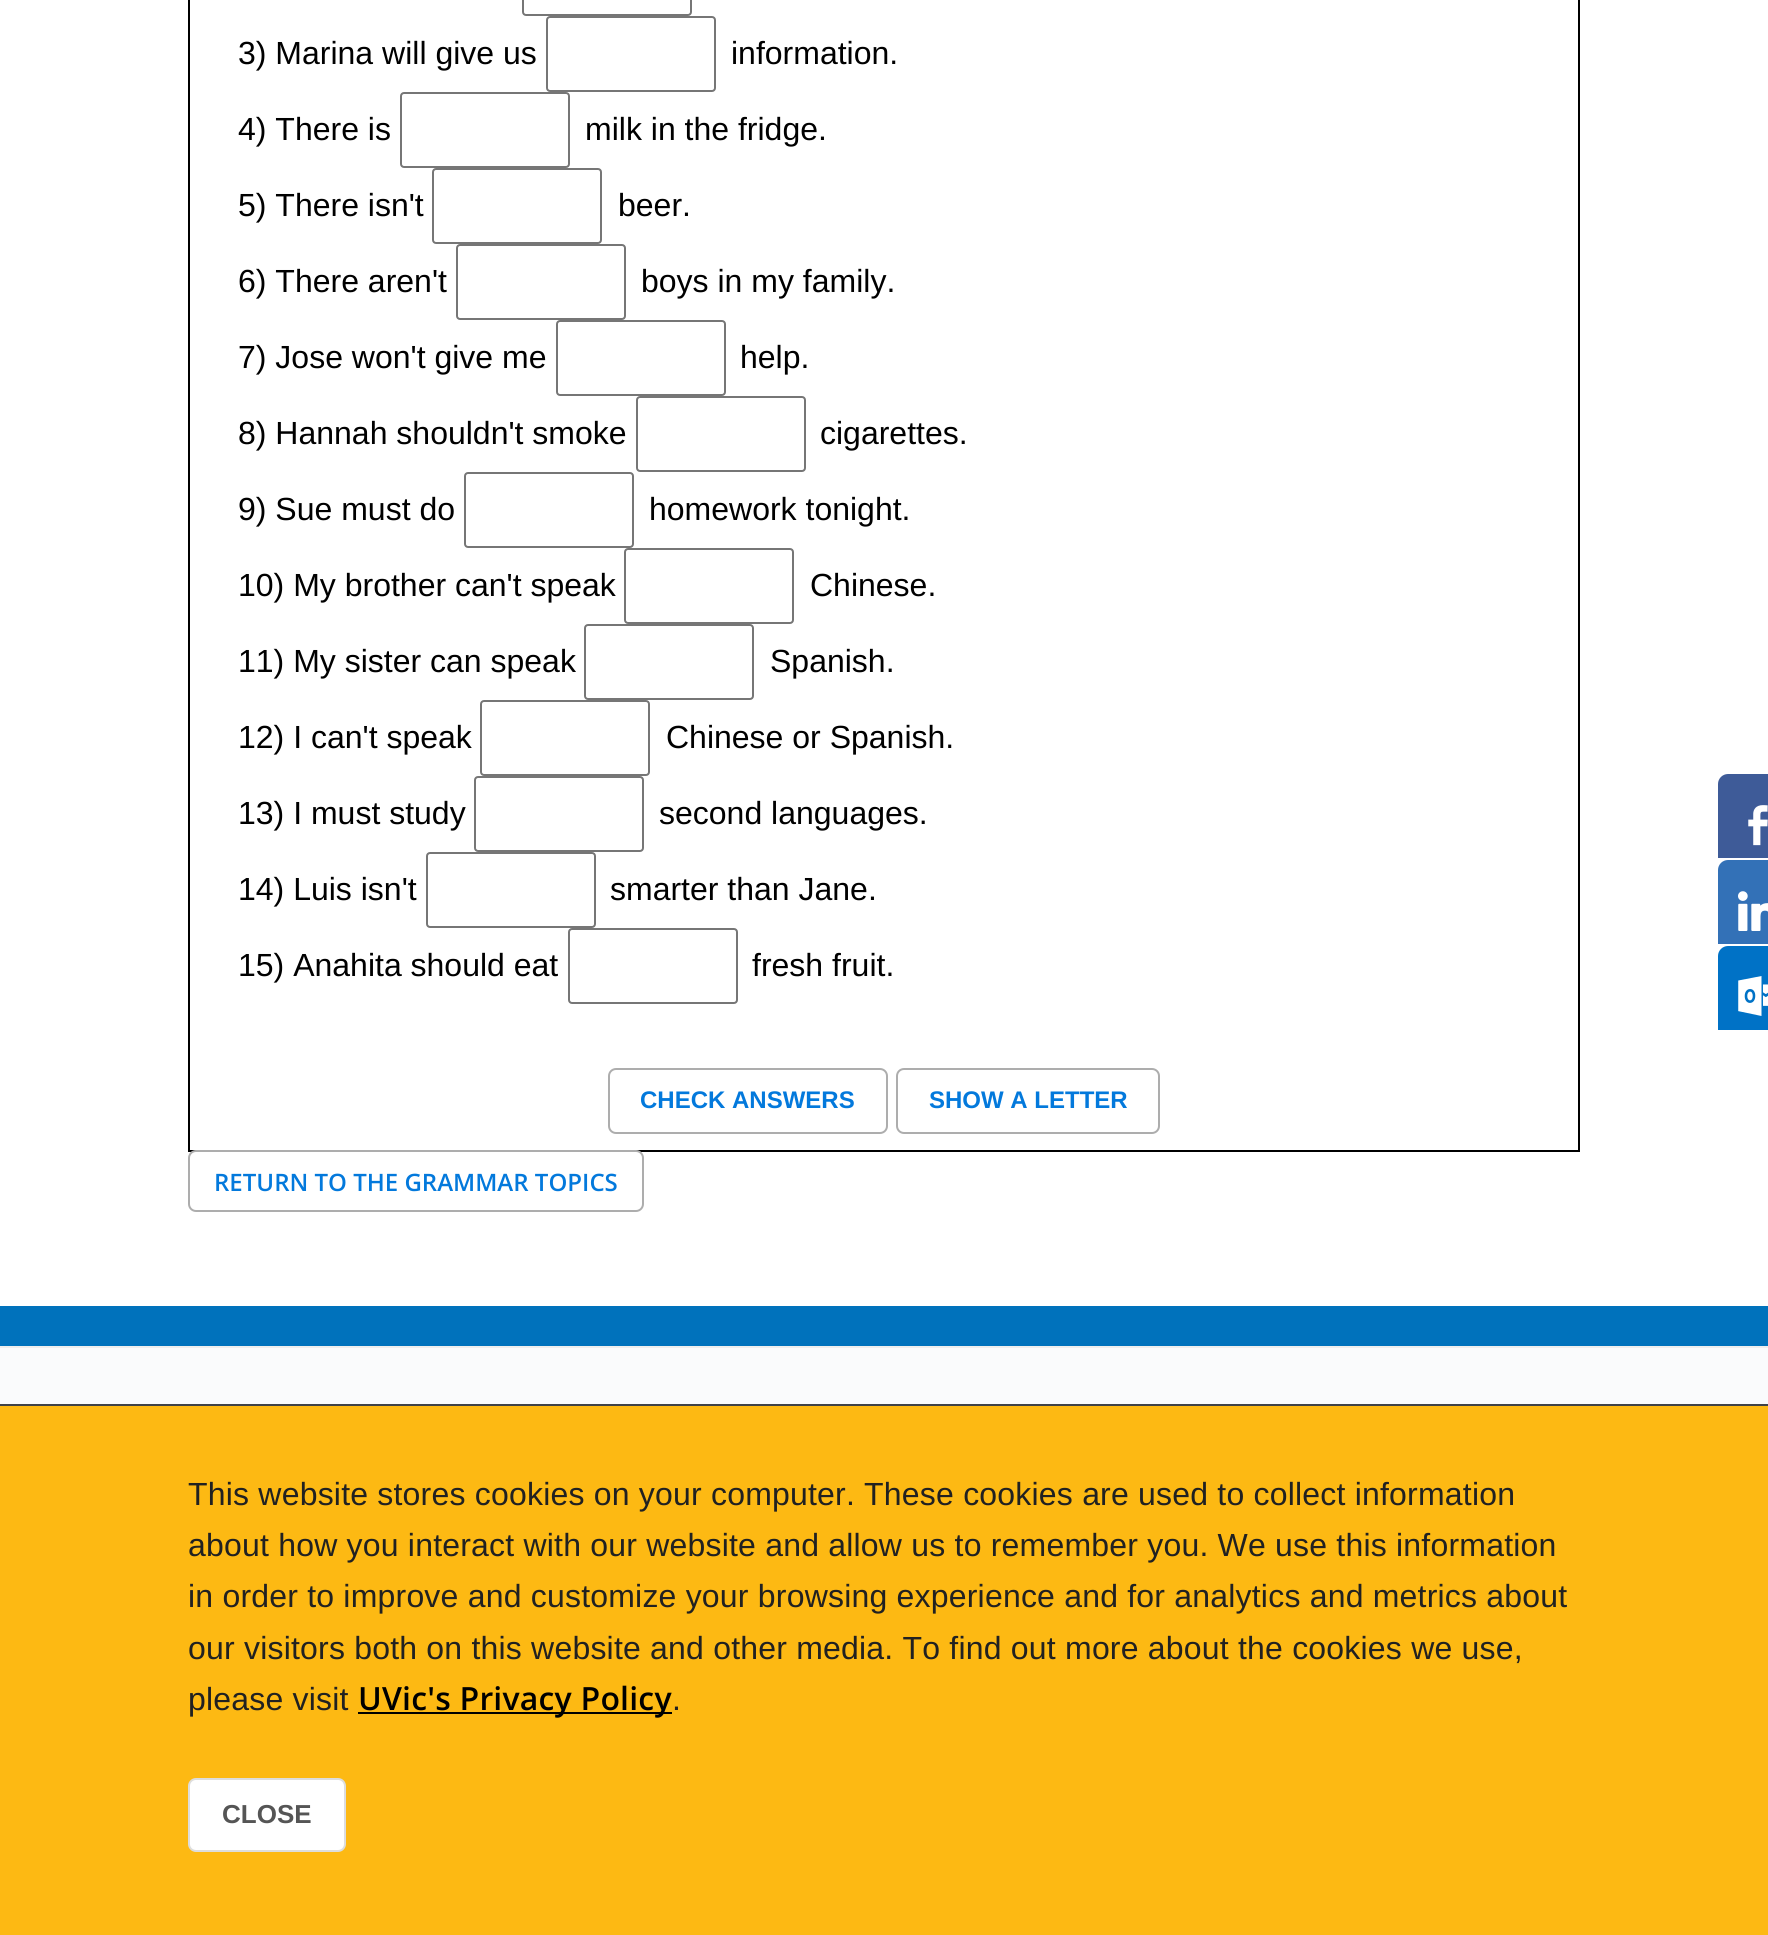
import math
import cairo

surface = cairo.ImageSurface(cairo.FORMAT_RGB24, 1768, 1935)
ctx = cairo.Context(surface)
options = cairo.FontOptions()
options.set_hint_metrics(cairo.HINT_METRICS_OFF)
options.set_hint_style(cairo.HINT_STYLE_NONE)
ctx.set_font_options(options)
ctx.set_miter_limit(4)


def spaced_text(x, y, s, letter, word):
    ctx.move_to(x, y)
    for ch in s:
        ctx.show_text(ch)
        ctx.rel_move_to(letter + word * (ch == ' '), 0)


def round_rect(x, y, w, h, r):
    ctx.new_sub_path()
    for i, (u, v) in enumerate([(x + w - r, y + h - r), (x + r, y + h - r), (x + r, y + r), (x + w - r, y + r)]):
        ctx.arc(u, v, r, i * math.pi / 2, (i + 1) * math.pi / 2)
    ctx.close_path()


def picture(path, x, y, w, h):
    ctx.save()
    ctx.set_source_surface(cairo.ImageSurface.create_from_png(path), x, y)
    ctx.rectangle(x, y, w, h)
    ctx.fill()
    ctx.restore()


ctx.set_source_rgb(1, 1, 1)
ctx.paint()
ctx.rectangle(189, -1, 1390, 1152)
ctx.set_source_rgb(0, 0, 0)
ctx.stroke()
round_rect(523, -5, 168, 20, 3)
ctx.set_source_rgb(0.463, 0.463, 0.463)
ctx.stroke()
ctx.select_font_face("Liberation Sans")
ctx.set_font_size(32)
ctx.set_source_rgb(0, 0, 0)
ctx.move_to(238, 64)
ctx.show_text("3) Marina will give us")
round_rect(547, 17, 168, 74, 3)
ctx.set_source_rgb(0.463, 0.463, 0.463)
ctx.stroke()
ctx.set_source_rgb(0, 0, 0)
ctx.move_to(731, 64)
ctx.show_text("information.")
ctx.move_to(238, 140)
ctx.show_text("4) There is")
round_rect(401, 93, 168, 74, 3)
ctx.set_source_rgb(0.463, 0.463, 0.463)
ctx.stroke()
ctx.set_source_rgb(0, 0, 0)
ctx.move_to(585, 140)
ctx.show_text("milk in the fridge.")
ctx.move_to(238, 216)
ctx.show_text("5) There isn't")
round_rect(433, 169, 168, 74, 3)
ctx.set_source_rgb(0.463, 0.463, 0.463)
ctx.stroke()
ctx.set_source_rgb(0, 0, 0)
ctx.move_to(618, 216)
ctx.show_text("beer.")
ctx.move_to(238, 292)
ctx.show_text("6) There aren't")
round_rect(457, 245, 168, 74, 3)
ctx.set_source_rgb(0.463, 0.463, 0.463)
ctx.stroke()
ctx.set_source_rgb(0, 0, 0)
ctx.move_to(641, 292)
ctx.show_text("boys in my family.")
ctx.move_to(238, 368)
ctx.show_text("7) Jose won't give me")
round_rect(557, 321, 168, 74, 3)
ctx.set_source_rgb(0.463, 0.463, 0.463)
ctx.stroke()
ctx.set_source_rgb(0, 0, 0)
ctx.move_to(740, 368)
ctx.show_text("help.")
ctx.move_to(238, 444)
ctx.show_text("8) Hannah shouldn't smoke")
round_rect(637, 397, 168, 74, 3)
ctx.set_source_rgb(0.463, 0.463, 0.463)
ctx.stroke()
ctx.set_source_rgb(0, 0, 0)
ctx.move_to(820, 444)
ctx.show_text("cigarettes.")
ctx.move_to(238, 520)
ctx.show_text("9) Sue must do")
round_rect(465, 473, 168, 74, 3)
ctx.set_source_rgb(0.463, 0.463, 0.463)
ctx.stroke()
ctx.set_source_rgb(0, 0, 0)
ctx.move_to(649, 520)
ctx.show_text("homework tonight.")
ctx.move_to(238, 596)
ctx.show_text("10) My brother can't speak")
round_rect(625, 549, 168, 74, 3)
ctx.set_source_rgb(0.463, 0.463, 0.463)
ctx.stroke()
ctx.set_source_rgb(0, 0, 0)
ctx.move_to(810, 596)
ctx.show_text("Chinese.")
ctx.move_to(238, 672)
ctx.show_text("11) My sister can speak")
round_rect(585, 625, 168, 74, 3)
ctx.set_source_rgb(0.463, 0.463, 0.463)
ctx.stroke()
ctx.set_source_rgb(0, 0, 0)
ctx.move_to(770, 672)
ctx.show_text("Spanish.")
ctx.move_to(238, 748)
ctx.show_text("12) I can't speak")
round_rect(481, 701, 168, 74, 3)
ctx.set_source_rgb(0.463, 0.463, 0.463)
ctx.stroke()
ctx.set_source_rgb(0, 0, 0)
ctx.move_to(666, 748)
ctx.show_text("Chinese or Spanish.")
ctx.move_to(238, 824)
ctx.show_text("13) I must study")
round_rect(475, 777, 168, 74, 3)
ctx.set_source_rgb(0.463, 0.463, 0.463)
ctx.stroke()
ctx.set_source_rgb(0, 0, 0)
ctx.move_to(659, 824)
ctx.show_text("second languages.")
ctx.move_to(238, 900)
ctx.show_text("14) Luis isn't")
round_rect(427, 853, 168, 74, 3)
ctx.set_source_rgb(0.463, 0.463, 0.463)
ctx.stroke()
ctx.set_source_rgb(0, 0, 0)
ctx.move_to(610, 900)
ctx.show_text("smarter than Jane.")
ctx.move_to(238, 976)
ctx.show_text("15) Anahita should eat")
round_rect(569, 929, 168, 74, 3)
ctx.set_source_rgb(0.463, 0.463, 0.463)
ctx.stroke()
ctx.set_source_rgb(0, 0, 0)
ctx.move_to(752, 976)
ctx.show_text("fresh fruit.")
round_rect(609, 1069, 278, 64, 7)
ctx.set_source_rgb(0.678, 0.678, 0.678)
ctx.stroke()
ctx.select_font_face("Liberation Sans", cairo.FONT_SLANT_NORMAL, cairo.FONT_WEIGHT_BOLD)
ctx.set_font_size(24)
ctx.set_source_rgb(0.012, 0.475, 0.863)
ctx.move_to(640, 1108)
ctx.show_text("CHECK ANSWERS")
round_rect(897, 1069, 262, 64, 7)
ctx.set_source_rgb(0.678, 0.678, 0.678)
ctx.stroke()
ctx.set_source_rgb(0.012, 0.475, 0.863)
ctx.move_to(929, 1108)
ctx.show_text("SHOW A LETTER")
ctx.set_source_rgb(1, 1, 1)
round_rect(189, 1151, 454, 60, 7)
ctx.fill_preserve()
ctx.set_source_rgb(0.678, 0.678, 0.678)
ctx.stroke()
ctx.select_font_face("Open Sans SemiBold")
ctx.set_source_rgb(0.012, 0.475, 0.863)
ctx.move_to(214, 1191)
ctx.show_text("RETURN TO THE GRAMMAR TOPICS")
ctx.set_source_rgb(0, 0.447, 0.737)
ctx.rectangle(0, 1306, 1768, 40)
ctx.fill()
ctx.set_source_rgb(0.98, 0.984, 0.988)
ctx.rectangle(0, 1348, 1768, 56)
ctx.fill()
ctx.set_source_rgb(0.933, 0.933, 0.933)
ctx.rectangle(0, 1346, 1768, 2)
ctx.fill()
ctx.set_source_rgb(0.992, 0.725, 0.075)
ctx.rectangle(0, 1406, 1768, 529)
ctx.fill()
ctx.set_source_rgb(0.247, 0.259, 0.278)
ctx.rectangle(0, 1404, 1768, 2)
ctx.fill()
ctx.select_font_face("Liberation Sans")
ctx.set_font_size(32)
ctx.set_source_rgb(0.129, 0.129, 0.129)
spaced_text(188, 1505, "This website stores cookies on your computer. These cookies are used to collect information", 0.2, 0)
spaced_text(188, 1556, "about how you interact with our website and allow us to remember you. We use this information", 0.2, 0)
spaced_text(188, 1607, "in order to improve and customize your browsing experience and for analytics and metrics about", 0.2, 0)
spaced_text(188, 1659, "our visitors both on this website and other media. To find out more about the cookies we use,", 0.2, 0)
spaced_text(188, 1710, "please visit", 0.2, 0)
ctx.set_source_rgb(0, 0, 0)
ctx.rectangle(358, 1712, 314, 2)
ctx.fill()
ctx.select_font_face("Open Sans SemiBold")
spaced_text(358, 1710, "UVic's Privacy Policy", 0.2, 0)
ctx.select_font_face("Liberation Sans")
ctx.set_source_rgb(0.129, 0.129, 0.129)
spaced_text(672, 1710, ".", 0.2, 0)
ctx.set_source_rgb(1, 1, 1)
round_rect(189, 1779, 156, 72, 7)
ctx.fill_preserve()
ctx.set_source_rgb(0.867, 0.867, 0.867)
ctx.stroke()
ctx.select_font_face("Liberation Sans", cairo.FONT_SLANT_NORMAL, cairo.FONT_WEIGHT_BOLD)
ctx.set_font_size(26)
ctx.set_source_rgb(0.333, 0.333, 0.333)
ctx.move_to(222, 1823)
ctx.show_text("CLOSE")
ctx.set_source_rgb(0.243, 0.357, 0.596)
ctx.new_path()
ctx.move_to(1728, 774)
ctx.line_to(1768, 774)
ctx.curve_to(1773.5, 774, 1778, 778.5, 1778, 784)
ctx.line_to(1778, 858)
ctx.line_to(1718, 858)
ctx.line_to(1718, 784)
ctx.curve_to(1718, 778.5, 1722.5, 774, 1728, 774)
ctx.close_path()
ctx.fill()
picture("img1.png", 1748, 805, 20, 41)
ctx.set_source_rgb(0.2, 0.443, 0.718)
ctx.new_path()
ctx.move_to(1728, 860)
ctx.line_to(1768, 860)
ctx.curve_to(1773.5, 860, 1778, 864.5, 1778, 870)
ctx.line_to(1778, 944)
ctx.line_to(1718, 944)
ctx.line_to(1718, 870)
ctx.curve_to(1718, 864.5, 1722.5, 860, 1728, 860)
ctx.close_path()
ctx.fill()
picture("img2.png", 1738, 891, 30, 40)
ctx.set_source_rgb(0, 0.447, 0.776)
ctx.new_path()
ctx.move_to(1728, 946)
ctx.line_to(1768, 946)
ctx.curve_to(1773.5, 946, 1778, 950.5, 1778, 956)
ctx.line_to(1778, 1030)
ctx.line_to(1718, 1030)
ctx.line_to(1718, 956)
ctx.curve_to(1718, 950.5, 1722.5, 946, 1728, 946)
ctx.close_path()
ctx.fill()
picture("img3.png", 1738, 976, 30, 40)
surface.write_to_png("page.png")
